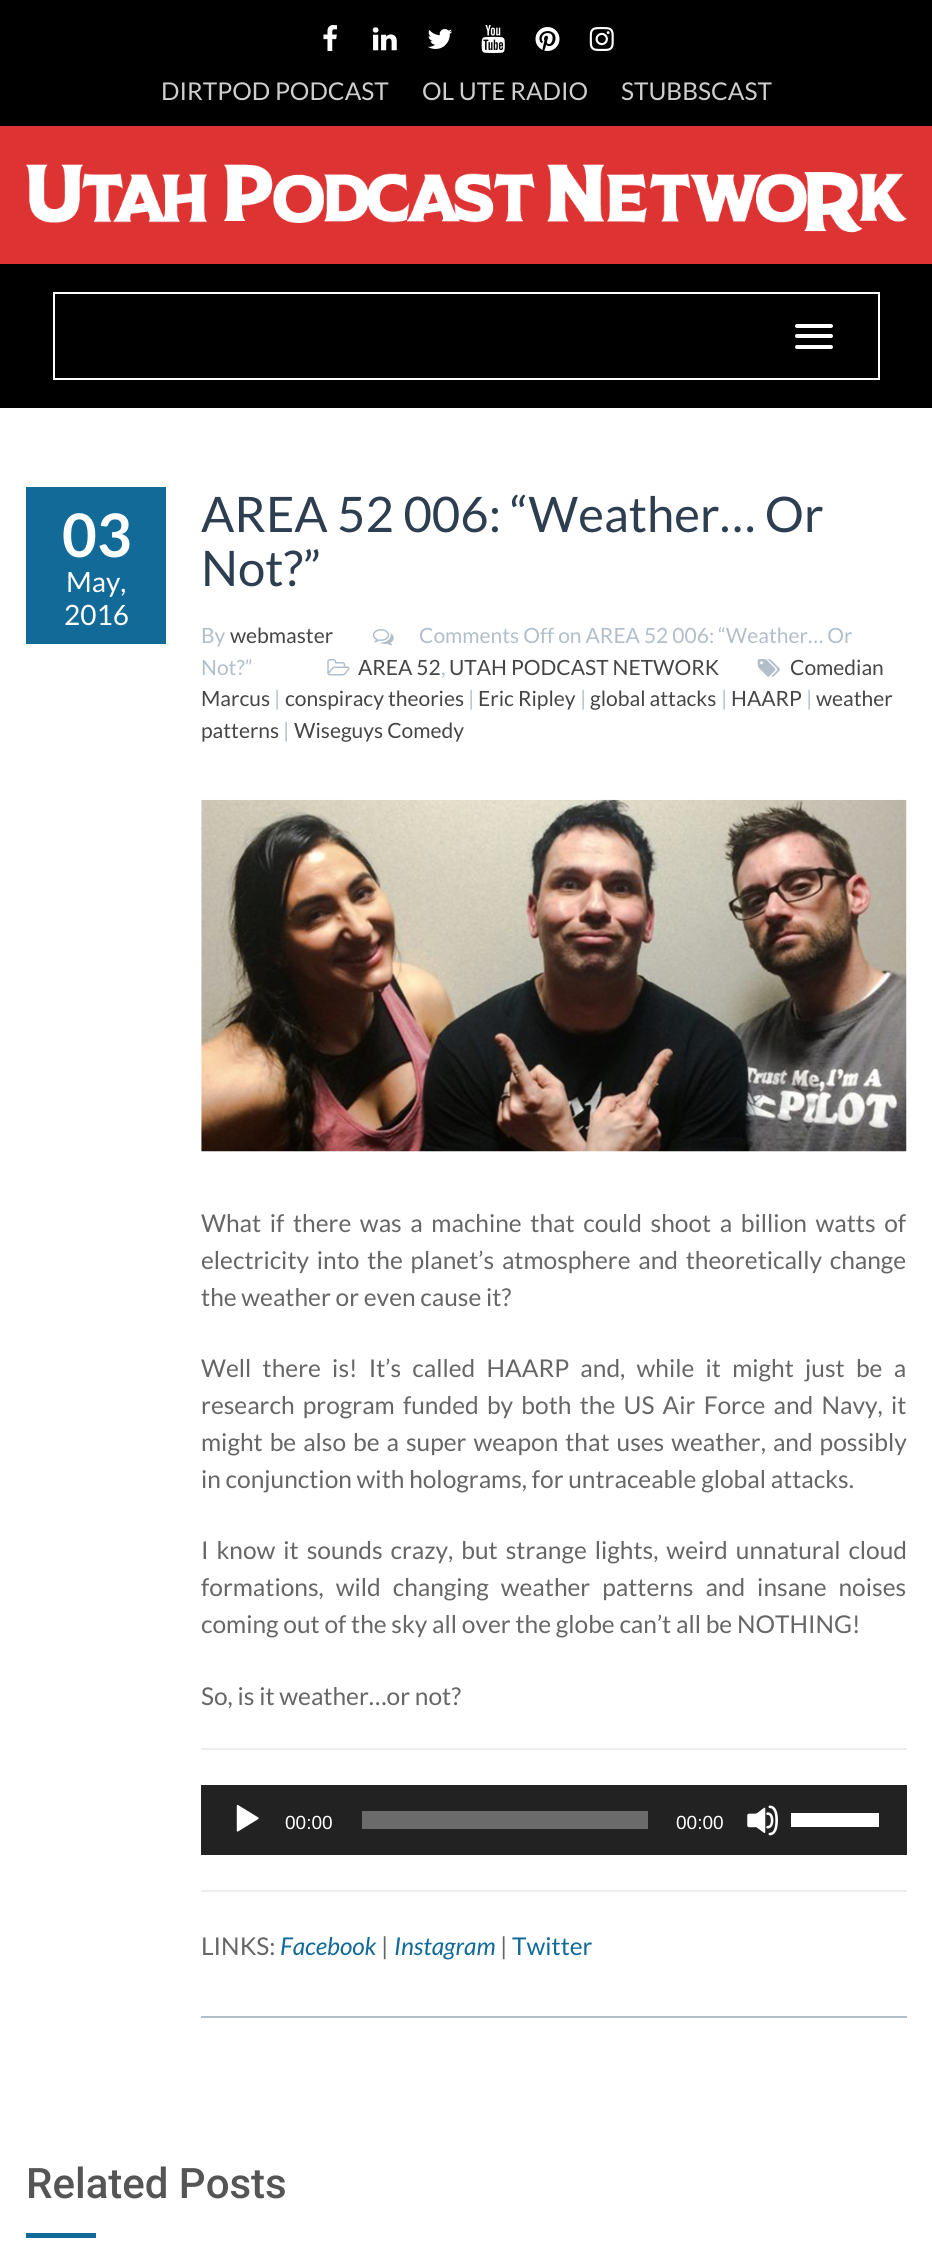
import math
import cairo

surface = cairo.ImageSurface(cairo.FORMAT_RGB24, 932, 2259)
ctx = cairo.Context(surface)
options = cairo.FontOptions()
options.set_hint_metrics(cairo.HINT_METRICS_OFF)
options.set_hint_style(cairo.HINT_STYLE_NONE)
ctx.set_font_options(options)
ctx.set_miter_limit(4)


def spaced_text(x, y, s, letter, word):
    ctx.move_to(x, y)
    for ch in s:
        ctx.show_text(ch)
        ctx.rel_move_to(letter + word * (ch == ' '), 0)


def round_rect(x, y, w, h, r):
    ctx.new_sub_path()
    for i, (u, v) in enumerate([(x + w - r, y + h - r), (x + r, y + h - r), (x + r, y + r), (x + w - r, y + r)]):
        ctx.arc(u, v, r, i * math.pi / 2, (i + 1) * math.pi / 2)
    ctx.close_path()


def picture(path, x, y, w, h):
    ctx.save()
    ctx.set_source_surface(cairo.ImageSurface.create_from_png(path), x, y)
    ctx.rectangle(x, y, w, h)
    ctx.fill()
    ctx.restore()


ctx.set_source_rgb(1, 1, 1)
ctx.paint()
ctx.set_source_rgb(0, 0, 0)
ctx.rectangle(0, 0, 932, 126)
ctx.fill()
picture("img1.png", 323, 25, 14, 26)
picture("img2.png", 372, 27, 25, 24)
picture("img3.png", 427, 29, 26, 20)
picture("img4.png", 481, 25, 24, 28)
picture("img5.png", 535, 27, 25, 24)
picture("img6.png", 589, 27, 25, 24)
ctx.select_font_face("Lato")
ctx.set_font_size(24.5)
ctx.set_source_rgb(0.808, 0.808, 0.808)
ctx.move_to(161, 100)
ctx.show_text("DIRTPOD PODCAST")
ctx.move_to(422, 100)
ctx.show_text("OL UTE RADIO")
ctx.move_to(621, 100)
ctx.show_text("STUBBSCAST")
ctx.set_source_rgb(0.867, 0.2, 0.2)
ctx.rectangle(0, 126, 932, 138)
ctx.fill()
picture("img7.png", 26, 164, 881, 69)
ctx.set_source_rgb(0, 0, 0)
ctx.rectangle(0, 264, 932, 144)
ctx.fill()
ctx.rectangle(54, 293, 825, 86)
ctx.set_source_rgb(1, 1, 1)
ctx.stroke()
round_rect(795, 324, 38, 4, 2)
ctx.fill()
round_rect(795, 334, 38, 4, 2)
ctx.fill()
round_rect(795, 345, 38, 4, 2)
ctx.fill()
ctx.set_source_rgb(0.067, 0.416, 0.592)
ctx.rectangle(26, 487, 140, 157)
ctx.fill()
ctx.select_font_face("Lato", cairo.FONT_SLANT_NORMAL, cairo.FONT_WEIGHT_BOLD)
ctx.set_font_size(60)
ctx.set_source_rgb(1, 1, 1)
ctx.move_to(62, 557)
ctx.show_text("03")
ctx.select_font_face("Lato")
ctx.set_font_size(28)
ctx.move_to(66, 592)
ctx.show_text("May,")
ctx.move_to(64, 625)
ctx.show_text("2016")
ctx.set_source_rgb(0.698, 0.749, 0.792)
ctx.rectangle(201, 2016, 706, 2)
ctx.fill()
ctx.set_font_size(49)
ctx.set_source_rgb(0.173, 0.243, 0.314)
ctx.move_to(201, 532)
ctx.show_text("AREA 52 006: “Weather… Or")
ctx.move_to(201, 586)
ctx.show_text("Not?”")
picture("img8.png", 372, 629, 22, 17)
ctx.set_font_size(21)
ctx.set_source_rgb(0.698, 0.749, 0.792)
ctx.move_to(419, 643)
ctx.show_text("Comments Off on AREA 52 006: “Weather… Or")
ctx.move_to(201, 675)
ctx.show_text("Not?”")
ctx.move_to(201, 643)
ctx.show_text("By")
ctx.set_source_rgb(0.275, 0.275, 0.275)
ctx.move_to(230, 643)
ctx.show_text("webmaster")
picture("img9.png", 757, 659, 23, 18)
ctx.move_to(790, 675)
ctx.show_text("Comedian")
ctx.move_to(201, 706)
ctx.show_text("Marcus")
ctx.set_source_rgb(0.698, 0.749, 0.792)
ctx.move_to(274, 706)
ctx.show_text("|")
ctx.set_source_rgb(0.275, 0.275, 0.275)
ctx.move_to(285, 706)
ctx.show_text("conspiracy theories")
ctx.set_source_rgb(0.698, 0.749, 0.792)
ctx.move_to(468, 706)
ctx.show_text("|")
ctx.set_source_rgb(0.275, 0.275, 0.275)
ctx.move_to(478, 706)
ctx.show_text("Eric Ripley")
ctx.set_source_rgb(0.698, 0.749, 0.792)
ctx.move_to(580, 706)
ctx.show_text("|")
ctx.set_source_rgb(0.275, 0.275, 0.275)
ctx.move_to(590, 706)
ctx.show_text("global attacks")
ctx.set_source_rgb(0.698, 0.749, 0.792)
ctx.move_to(721, 706)
ctx.show_text("|")
ctx.set_source_rgb(0.275, 0.275, 0.275)
ctx.move_to(731, 706)
ctx.show_text("HAARP")
ctx.set_source_rgb(0.698, 0.749, 0.792)
ctx.move_to(806, 706)
ctx.show_text("|")
ctx.set_source_rgb(0.275, 0.275, 0.275)
ctx.move_to(816, 706)
ctx.show_text("weather")
ctx.move_to(201, 738)
ctx.show_text("patterns")
ctx.set_source_rgb(0.698, 0.749, 0.792)
ctx.move_to(283, 738)
ctx.show_text("|")
ctx.set_source_rgb(0.275, 0.275, 0.275)
ctx.move_to(294, 738)
ctx.show_text("Wiseguys Comedy")
picture("img10.png", 327, 659, 23, 17)
ctx.move_to(358, 675)
ctx.show_text("AREA 52")
ctx.set_source_rgb(0.698, 0.749, 0.792)
ctx.move_to(441, 675)
ctx.show_text(",")
ctx.set_source_rgb(0.275, 0.275, 0.275)
ctx.move_to(449, 675)
ctx.show_text("UTAH PODCAST NETWORK")
picture("img11.png", 201, 799, 706, 353)
ctx.set_font_size(24.5)
ctx.set_source_rgb(0.4, 0.4, 0.4)
spaced_text(201, 1232, "What if there was a machine that could shoot a billion watts of", 0, 3.9)
spaced_text(201, 1269, "electricity into the planet’s atmosphere and theoretically change", 0, 3)
ctx.move_to(201, 1306)
ctx.show_text("the weather or even cause it?")
spaced_text(201, 1377, "Well there is! It’s called HAARP and, while it might just be a", 0, 6.5)
spaced_text(201, 1414, "research program funded by both the US Air Force and Navy, it", 0, 3.5)
spaced_text(201, 1451, "might be also be a super weapon that uses weather, and possibly", 0, 2.25)
ctx.move_to(201, 1488)
ctx.show_text("in conjunction with holograms, for untraceable global attacks.")
spaced_text(201, 1559, "I know it sounds crazy, but strange lights, weird unnatural cloud", 0, 3.25)
spaced_text(201, 1596, "formations, wild changing weather patterns and insane noises", 0, 7.25)
ctx.move_to(201, 1633)
ctx.show_text("coming out of the sky all over the globe can’t all be NOTHING!")
ctx.move_to(201, 1705)
ctx.show_text("So, is it weather…or not?")
ctx.set_source_rgb(0.933, 0.933, 0.933)
ctx.rectangle(201, 1748, 706, 2)
ctx.fill()
ctx.set_source_rgb(0.133, 0.133, 0.133)
ctx.rectangle(201, 1785, 706, 70)
ctx.fill()
picture("img12.png", 236, 1804, 23, 28)
ctx.select_font_face("Liberation Sans")
ctx.set_font_size(19)
ctx.set_source_rgb(1, 1, 1)
ctx.move_to(285, 1829)
ctx.show_text("00:00")
ctx.set_source_rgb(0.42, 0.42, 0.42)
ctx.rectangle(362, 1811, 286, 18)
ctx.fill()
ctx.set_source_rgb(1, 1, 1)
ctx.move_to(676, 1829)
ctx.show_text("00:00")
picture("img13.png", 747, 1805, 31, 31)
ctx.rectangle(791, 1813, 88, 14)
ctx.fill()
ctx.set_source_rgb(0.933, 0.933, 0.933)
ctx.rectangle(201, 1890, 706, 2)
ctx.fill()
ctx.select_font_face("Lato")
ctx.set_font_size(24.5)
ctx.set_source_rgb(0.4, 0.4, 0.4)
ctx.move_to(201, 1955)
ctx.show_text("LINKS:")
ctx.select_font_face("Lato", cairo.FONT_SLANT_ITALIC)
ctx.set_source_rgb(0.067, 0.416, 0.592)
ctx.move_to(280, 1955)
ctx.show_text("Facebook")
ctx.select_font_face("Lato")
ctx.set_source_rgb(0.4, 0.4, 0.4)
ctx.move_to(381, 1955)
ctx.show_text("|")
ctx.select_font_face("Lato", cairo.FONT_SLANT_ITALIC)
ctx.set_source_rgb(0.067, 0.416, 0.592)
ctx.move_to(394, 1955)
ctx.show_text("Instagram")
ctx.select_font_face("Lato")
ctx.set_source_rgb(0.4, 0.4, 0.4)
ctx.move_to(500, 1955)
ctx.show_text("|")
ctx.set_source_rgb(0.067, 0.416, 0.592)
ctx.move_to(512, 1955)
ctx.show_text("Twitter")
ctx.select_font_face("Roboto Medium")
ctx.set_font_size(42)
ctx.set_source_rgb(0.333, 0.333, 0.333)
ctx.move_to(26, 2198)
ctx.show_text("Related Posts")
ctx.set_source_rgb(0.067, 0.416, 0.592)
ctx.rectangle(26, 2233, 70, 5)
ctx.fill()
surface.write_to_png("page.png")
